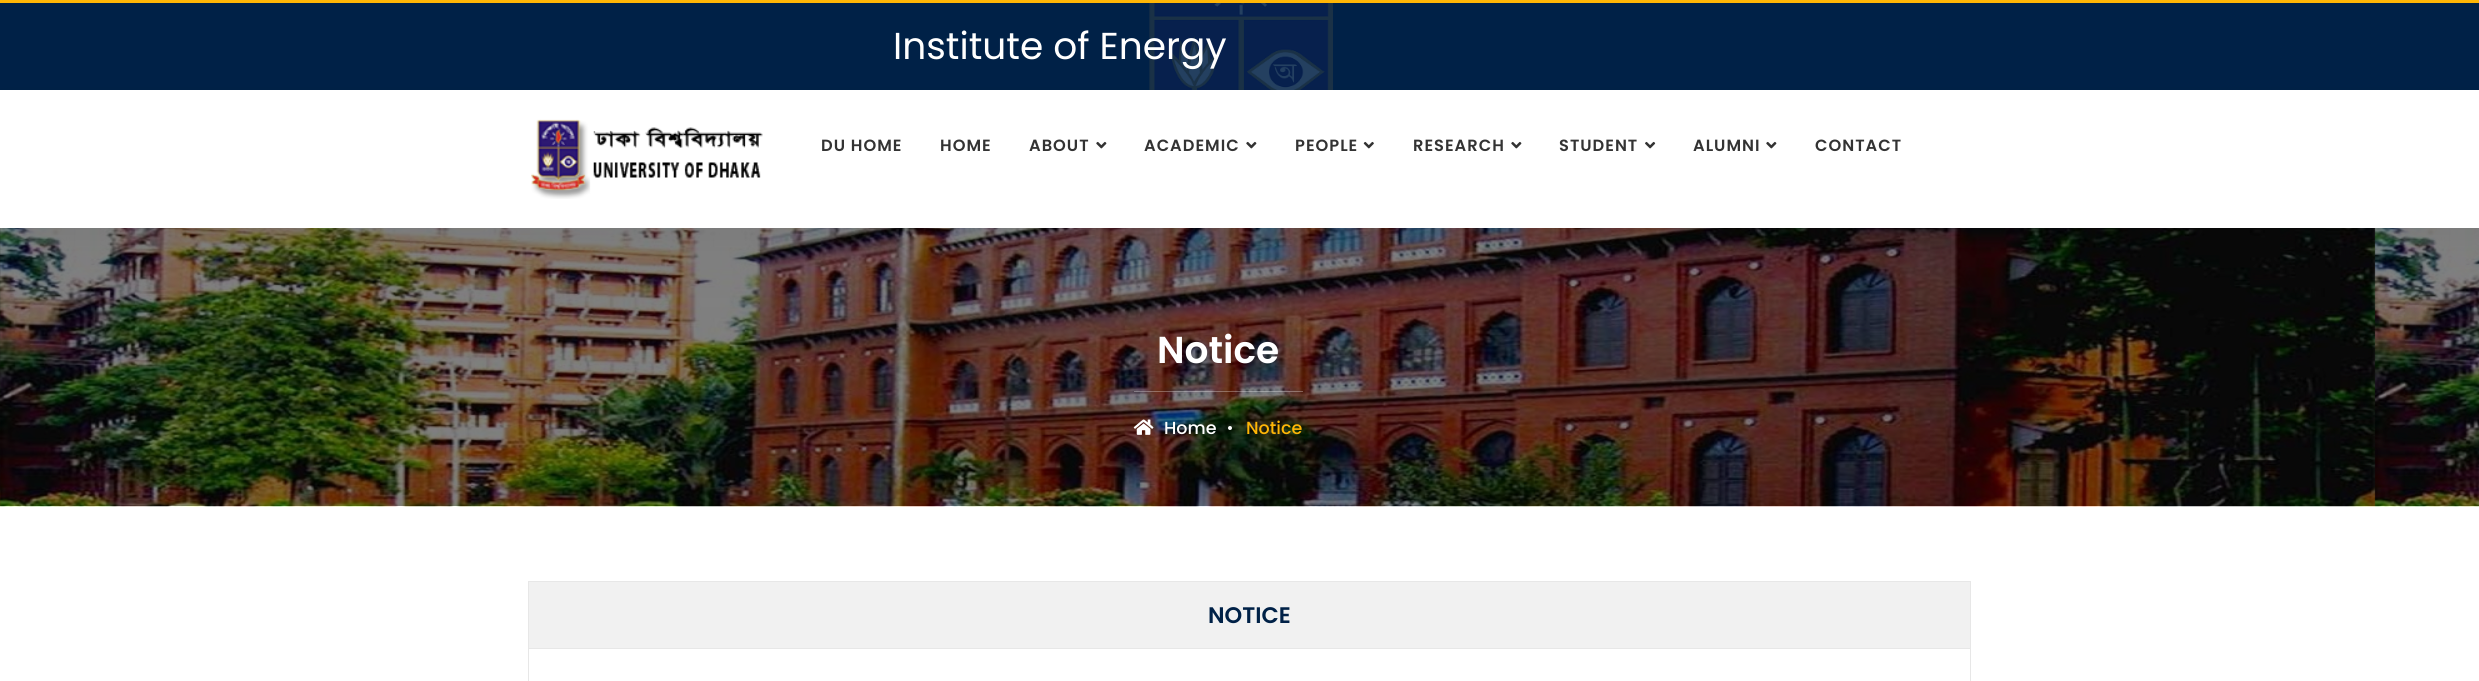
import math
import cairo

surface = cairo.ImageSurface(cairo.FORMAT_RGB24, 2479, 681)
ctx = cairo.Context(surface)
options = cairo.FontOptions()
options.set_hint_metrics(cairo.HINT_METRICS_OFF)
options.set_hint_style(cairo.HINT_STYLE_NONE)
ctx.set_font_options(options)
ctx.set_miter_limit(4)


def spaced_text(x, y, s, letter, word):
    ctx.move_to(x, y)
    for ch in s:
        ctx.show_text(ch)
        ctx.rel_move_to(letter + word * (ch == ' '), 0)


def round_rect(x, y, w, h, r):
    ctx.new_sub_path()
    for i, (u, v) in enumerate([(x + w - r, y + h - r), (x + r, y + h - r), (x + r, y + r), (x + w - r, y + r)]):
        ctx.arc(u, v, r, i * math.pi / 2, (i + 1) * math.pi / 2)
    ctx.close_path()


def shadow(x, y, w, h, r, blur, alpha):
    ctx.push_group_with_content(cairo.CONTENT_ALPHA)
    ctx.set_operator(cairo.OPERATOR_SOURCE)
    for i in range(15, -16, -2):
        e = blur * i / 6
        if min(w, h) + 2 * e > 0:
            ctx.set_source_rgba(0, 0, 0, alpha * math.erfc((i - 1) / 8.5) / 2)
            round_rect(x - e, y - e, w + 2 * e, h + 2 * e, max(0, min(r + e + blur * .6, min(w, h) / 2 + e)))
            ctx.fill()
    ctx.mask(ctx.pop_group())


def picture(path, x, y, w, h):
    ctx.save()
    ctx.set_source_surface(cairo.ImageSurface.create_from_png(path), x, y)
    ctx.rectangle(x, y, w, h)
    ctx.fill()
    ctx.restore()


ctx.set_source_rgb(1, 1, 1)
ctx.paint()
ctx.set_source_rgb(0, 0.129, 0.278)
ctx.rectangle(0, 3, 2479, 87)
ctx.fill()
picture("img1.png", 1149, 3, 184, 87)
ctx.set_source_rgb(1, 0.714, 0.024)
ctx.rectangle(0, 0, 2479, 3)
ctx.fill()
ctx.select_font_face("Poppins")
ctx.set_font_size(37.5)
ctx.set_source_rgb(1, 1, 1)
ctx.move_to(893, 59)
ctx.show_text("Institute of Energy")
picture("img6.png", 0, 228, 2479, 279)
ctx.set_source_rgb(0, 0, 0)
shadow(0, 100, 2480, 138, 0, 15.5, 0.04)
ctx.set_source_rgb(1, 1, 1)
ctx.rectangle(0, 90, 2479, 138)
ctx.fill()
picture("img2.png", 531, 119, 232, 80)
ctx.select_font_face("Poppins SemiBold")
ctx.set_font_size(16.25)
ctx.set_source_rgb(0.2, 0.2, 0.2)
spaced_text(821, 151, "DU HOME", 1, 0)
spaced_text(940, 151, "HOME", 1, 0)
spaced_text(1029, 151, "ABOUT", 1, 0)
picture("img3.png", 1096, 141, 11, 8)
spaced_text(1144, 151, "ACADEMIC", 1, 0)
picture("img3.png", 1246, 141, 11, 8)
spaced_text(1295, 151, "PEOPLE", 1, 0)
picture("img4.png", 1363, 141, 11, 8)
spaced_text(1413, 151, "RESEARCH", 1, 0)
picture("img3.png", 1511, 141, 11, 8)
spaced_text(1559, 151, "STUDENT", 1, 0)
picture("img5.png", 1645, 141, 11, 8)
spaced_text(1693, 151, "ALUMNI", 1, 0)
picture("img3.png", 1766, 141, 11, 8)
spaced_text(1815, 151, "CONTACT", 1, 0)
ctx.set_font_size(37.5)
ctx.set_source_rgb(1, 1, 1)
ctx.move_to(1157, 363)
ctx.show_text("Notice")
ctx.set_source_rgba(1, 1, 1, 0.3)
ctx.rectangle(1134, 391, 169, 1)
ctx.fill()
picture("img7.png", 1133, 419, 21, 16)
ctx.select_font_face("Poppins Medium")
ctx.set_font_size(17.5)
ctx.set_source_rgb(1, 1, 1)
ctx.move_to(1164, 434)
ctx.show_text("Home")
ctx.new_path()
ctx.arc(1230, 428, 2, 0, 2 * math.pi)
ctx.fill()
ctx.set_source_rgb(1, 0.714, 0.024)
ctx.move_to(1246, 434)
ctx.show_text("Notice")
ctx.set_source_rgb(0.945, 0.945, 0.945)
ctx.rectangle(528.5, 581.5, 1442, 67)
ctx.fill_preserve()
ctx.set_source_rgb(0.906, 0.906, 0.906)
ctx.set_line_width(1)
ctx.stroke()
ctx.select_font_face("Poppins SemiBold")
ctx.set_font_size(22.5)
ctx.set_source_rgb(0, 0.129, 0.278)
ctx.move_to(1208, 623)
ctx.show_text("NOTICE")
ctx.set_source_rgb(0.906, 0.906, 0.906)
ctx.rectangle(1970, 649, 1, 32)
ctx.fill()
ctx.rectangle(528, 649, 1, 32)
ctx.fill()
surface.write_to_png("page.png")
